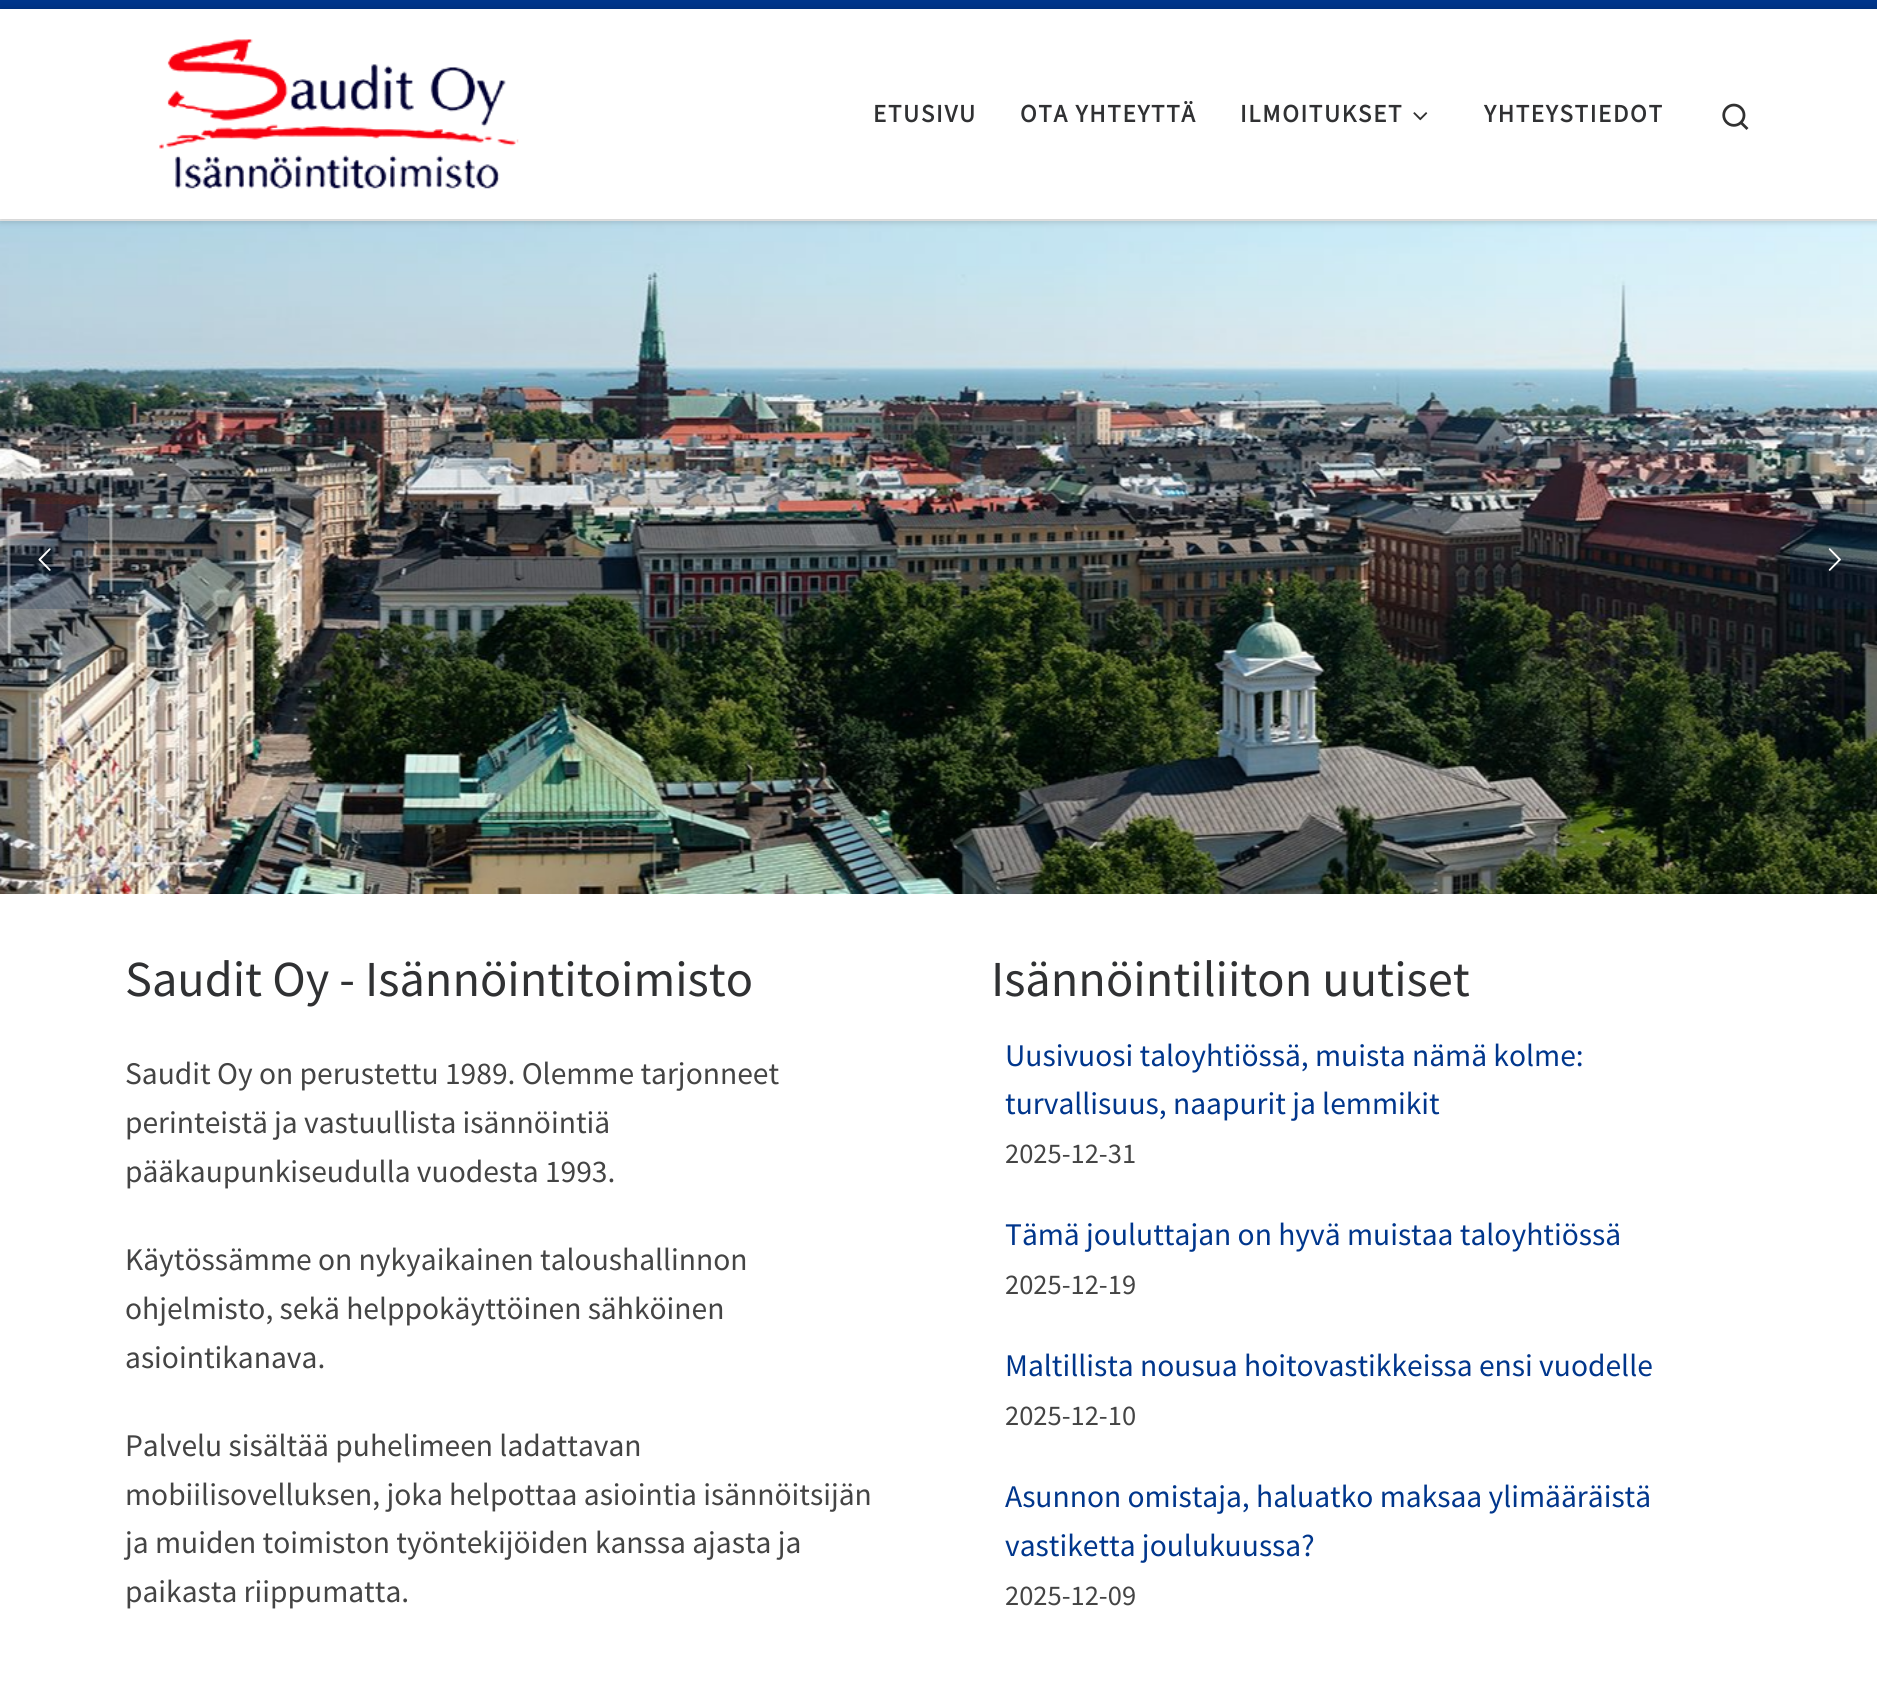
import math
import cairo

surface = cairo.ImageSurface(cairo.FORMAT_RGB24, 1877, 1681)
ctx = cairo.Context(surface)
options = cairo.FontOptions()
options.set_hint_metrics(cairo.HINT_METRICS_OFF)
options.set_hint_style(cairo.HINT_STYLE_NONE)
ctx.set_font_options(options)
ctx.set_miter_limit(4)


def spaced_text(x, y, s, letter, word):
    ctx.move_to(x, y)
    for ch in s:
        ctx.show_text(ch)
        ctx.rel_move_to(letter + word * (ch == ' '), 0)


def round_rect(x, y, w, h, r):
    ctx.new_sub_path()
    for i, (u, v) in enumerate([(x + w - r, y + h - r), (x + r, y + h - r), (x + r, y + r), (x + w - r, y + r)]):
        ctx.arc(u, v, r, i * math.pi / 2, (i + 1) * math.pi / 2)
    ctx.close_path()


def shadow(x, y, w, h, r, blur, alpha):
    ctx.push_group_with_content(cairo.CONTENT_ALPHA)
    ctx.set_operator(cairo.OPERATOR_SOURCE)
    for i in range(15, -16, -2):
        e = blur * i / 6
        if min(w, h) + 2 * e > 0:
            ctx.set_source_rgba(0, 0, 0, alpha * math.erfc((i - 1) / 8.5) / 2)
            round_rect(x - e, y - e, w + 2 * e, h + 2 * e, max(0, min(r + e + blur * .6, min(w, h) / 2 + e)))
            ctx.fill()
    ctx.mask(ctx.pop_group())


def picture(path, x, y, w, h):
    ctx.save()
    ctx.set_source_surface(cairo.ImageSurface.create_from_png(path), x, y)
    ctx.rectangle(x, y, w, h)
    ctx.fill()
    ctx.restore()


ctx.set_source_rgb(1, 1, 1)
ctx.paint()
picture("img4.png", 0, 221, 1877, 673)
ctx.set_source_rgb(0.4, 0.4, 0.4)
shadow(0, 4, 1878, 220, 0, 2, 0.08)
ctx.set_source_rgb(0, 0.212, 0.549)
ctx.rectangle(0, 0, 1877, 9)
ctx.fill()
ctx.set_source_rgb(0.937, 0.937, 0.937)
ctx.new_path()
ctx.move_to(0, 219)
ctx.line_to(0, 221)
ctx.line_to(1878, 221)
ctx.line_to(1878, 11)
ctx.line_to(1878, 219)
ctx.close_path()
ctx.fill()
ctx.set_source_rgb(0, 0, 0)
shadow(0, 9, 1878, 210, 0, 4.5, 0.2)
ctx.set_source_rgb(1, 1, 1)
ctx.rectangle(0, 9, 1877, 210)
ctx.fill()
picture("img1.png", 159, 39, 360, 150)
ctx.select_font_face("Source Sans Pro", cairo.FONT_SLANT_NORMAL, cairo.FONT_WEIGHT_BOLD)
ctx.set_font_size(25)
ctx.set_source_rgb(0.188, 0.192, 0.2)
spaced_text(873, 122, "ETUSIVU", 1.75, 0)
spaced_text(1020, 122, "OTA YHTEYTTÄ", 1.75, 0)
spaced_text(1240, 122, "ILMOITUKSET", 1.75, 0)
picture("img2.png", 1413, 112, 15, 9)
spaced_text(1484, 122, "YHTEYSTIEDOT", 1.75, 0)
picture("img3.png", 1722, 103, 27, 27)
ctx.set_source_rgba(0, 0.118, 0.31, 0.2)
ctx.new_path()
ctx.move_to(0, 504)
ctx.line_to(84, 504)
ctx.curve_to(86, 504, 88, 506, 88, 508)
ctx.line_to(88, 605)
ctx.curve_to(88, 607, 86, 609, 84, 609)
ctx.line_to(0, 609)
ctx.close_path()
ctx.fill()
picture("img5.png", 38, 548, 13, 23)
ctx.new_path()
ctx.move_to(1794, 504)
ctx.line_to(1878, 504)
ctx.line_to(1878, 609)
ctx.line_to(1794, 609)
ctx.curve_to(1792, 609, 1790, 607, 1790, 605)
ctx.line_to(1790, 508)
ctx.curve_to(1790, 506, 1792, 504, 1794, 504)
ctx.close_path()
ctx.fill()
picture("img6.png", 1828, 548, 13, 23)
ctx.select_font_face("Source Sans Pro")
ctx.set_font_size(50.4)
ctx.set_source_rgb(0.188, 0.192, 0.2)
ctx.move_to(125, 996)
ctx.show_text("Saudit Oy - Isännöintitoimisto")
ctx.set_font_size(31.5)
ctx.set_source_rgb(0.267, 0.267, 0.267)
ctx.move_to(125, 1084)
ctx.show_text("Saudit Oy on perustettu 1989. Olemme tarjonneet")
ctx.move_to(125, 1133)
ctx.show_text("perinteistä ja vastuullista isännöintiä")
ctx.move_to(125, 1182)
ctx.show_text("pääkaupunkiseudulla vuodesta 1993.")
ctx.move_to(125, 1270)
ctx.show_text("Käytössämme on nykyaikainen taloushallinnon")
ctx.move_to(125, 1319)
ctx.show_text("ohjelmisto, sekä helppokäyttöinen sähköinen")
ctx.move_to(125, 1368)
ctx.show_text("asiointikanava.")
ctx.move_to(125, 1456)
ctx.show_text("Palvelu sisältää puhelimeen ladattavan")
ctx.move_to(125, 1505)
ctx.show_text("mobiilisovelluksen, joka helpottaa asiointia isännöitsijän")
ctx.move_to(125, 1553)
ctx.show_text("ja muiden toimiston työntekijöiden kanssa ajasta ja")
ctx.move_to(125, 1602)
ctx.show_text("paikasta riippumatta.")
ctx.set_font_size(50.4)
ctx.set_source_rgb(0.188, 0.192, 0.2)
ctx.move_to(991, 996)
ctx.show_text("Isännöintiliiton uutiset")
ctx.set_font_size(31.5)
ctx.set_source_rgb(0, 0.212, 0.549)
ctx.move_to(1005, 1066)
ctx.show_text("Uusivuosi taloyhtiössä, muista nämä kolme:")
ctx.move_to(1005, 1114)
ctx.show_text("turvallisuus, naapurit ja lemmikit")
ctx.set_font_size(28.5)
ctx.set_source_rgb(0.267, 0.267, 0.267)
ctx.move_to(1005, 1163)
ctx.show_text("2025-12-31")
ctx.set_font_size(31.5)
ctx.set_source_rgb(0, 0.212, 0.549)
ctx.move_to(1005, 1245)
ctx.show_text("Tämä jouluttajan on hyvä muistaa taloyhtiössä")
ctx.set_font_size(28.5)
ctx.set_source_rgb(0.267, 0.267, 0.267)
ctx.move_to(1005, 1294)
ctx.show_text("2025-12-19")
ctx.set_font_size(31.5)
ctx.set_source_rgb(0, 0.212, 0.549)
ctx.move_to(1005, 1376)
ctx.show_text("Maltillista nousua hoitovastikkeissa ensi vuodelle")
ctx.set_font_size(28.5)
ctx.set_source_rgb(0.267, 0.267, 0.267)
ctx.move_to(1005, 1425)
ctx.show_text("2025-12-10")
ctx.set_font_size(31.5)
ctx.set_source_rgb(0, 0.212, 0.549)
ctx.move_to(1005, 1507)
ctx.show_text("Asunnon omistaja, haluatko maksaa ylimääräistä")
ctx.move_to(1005, 1556)
ctx.show_text("vastiketta joulukuussa?")
ctx.set_font_size(28.5)
ctx.set_source_rgb(0.267, 0.267, 0.267)
ctx.move_to(1005, 1605)
ctx.show_text("2025-12-09")
surface.write_to_png("page.png")
